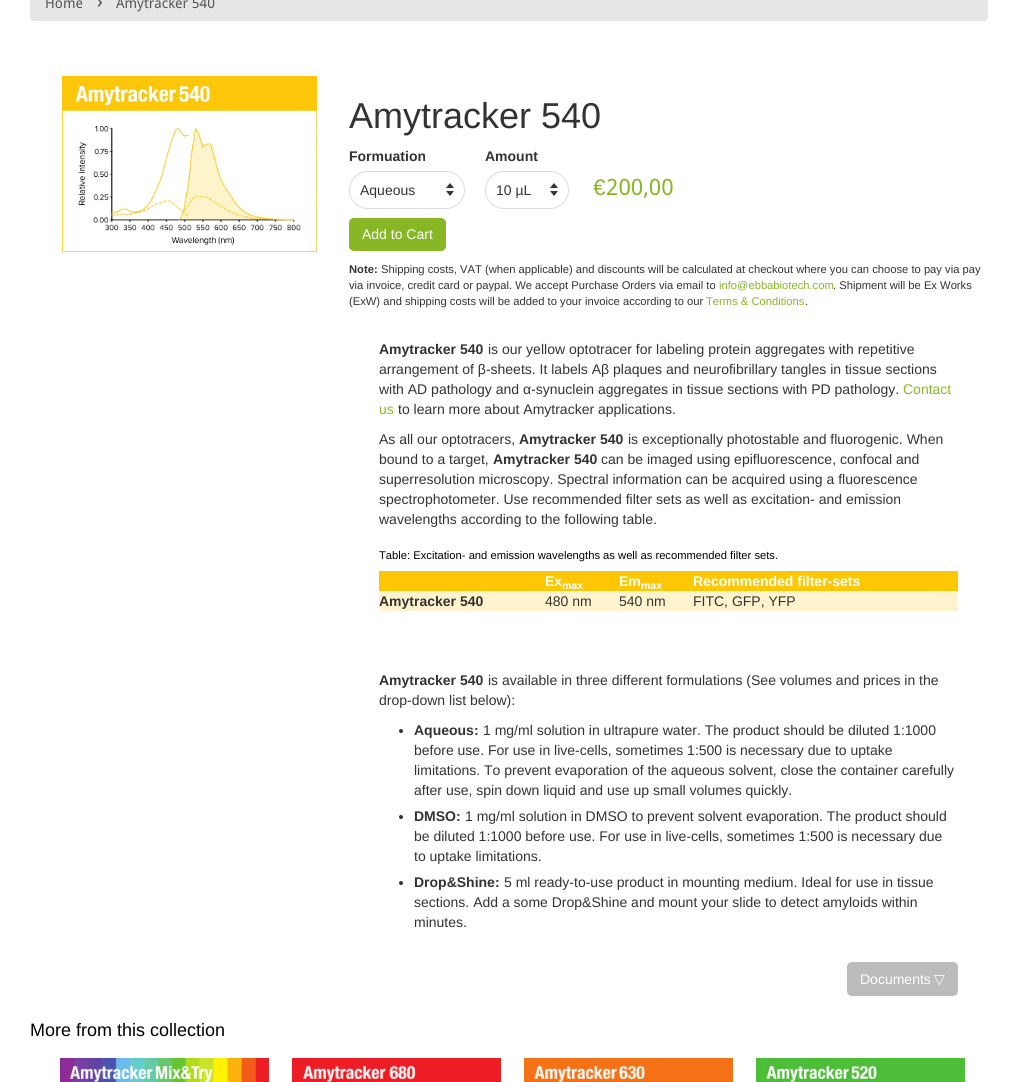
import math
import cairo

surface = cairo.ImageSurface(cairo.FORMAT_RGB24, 1018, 1082)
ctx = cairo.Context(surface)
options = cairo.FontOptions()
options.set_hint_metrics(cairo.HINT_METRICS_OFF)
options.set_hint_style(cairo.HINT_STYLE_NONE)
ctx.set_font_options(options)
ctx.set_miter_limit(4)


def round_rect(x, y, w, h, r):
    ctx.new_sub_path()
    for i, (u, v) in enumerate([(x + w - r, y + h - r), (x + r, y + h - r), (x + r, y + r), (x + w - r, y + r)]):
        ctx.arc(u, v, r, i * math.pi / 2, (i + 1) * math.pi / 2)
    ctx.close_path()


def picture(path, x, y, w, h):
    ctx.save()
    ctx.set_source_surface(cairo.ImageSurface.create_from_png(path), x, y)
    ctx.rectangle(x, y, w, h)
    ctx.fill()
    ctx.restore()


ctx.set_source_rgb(1, 1, 1)
ctx.paint()
ctx.set_source_rgb(0.902, 0.902, 0.902)
round_rect(30, -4, 958, 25, 4)
ctx.fill()
ctx.select_font_face("Droid Sans")
ctx.set_font_size(14)
ctx.set_source_rgb(0.333, 0.333, 0.333)
ctx.move_to(45, 8)
ctx.show_text("Home")
ctx.set_font_size(20)
ctx.move_to(97, 8)
ctx.show_text("›")
ctx.set_font_size(14)
ctx.move_to(116, 8)
ctx.show_text("Amytracker 540")
picture("img1.png", 62, 76, 255, 176)
ctx.select_font_face("Liberation Sans")
ctx.set_font_size(36)
ctx.set_source_rgb(0.2, 0.2, 0.2)
ctx.move_to(349, 128)
ctx.show_text("Amytracker 540")
ctx.select_font_face("Liberation Sans", cairo.FONT_SLANT_NORMAL, cairo.FONT_WEIGHT_BOLD)
ctx.set_font_size(14)
ctx.move_to(349, 161)
ctx.show_text("Formuation")
picture("img2.png", 446, 183, 8, 13)
round_rect(349.5, 171.5, 115, 37, 18.5)
ctx.set_source_rgb(0.867, 0.867, 0.867)
ctx.set_line_width(1)
ctx.stroke()
ctx.select_font_face("Liberation Sans")
ctx.set_source_rgb(0.2, 0.2, 0.2)
ctx.move_to(360, 195)
ctx.show_text("Aqueous")
ctx.select_font_face("Liberation Sans", cairo.FONT_SLANT_NORMAL, cairo.FONT_WEIGHT_BOLD)
ctx.move_to(485, 161)
ctx.show_text("Amount")
picture("img2.png", 550, 183, 8, 13)
round_rect(485.5, 171.5, 83, 37, 18.5)
ctx.set_source_rgb(0.867, 0.867, 0.867)
ctx.stroke()
ctx.select_font_face("Liberation Sans")
ctx.set_source_rgb(0.2, 0.2, 0.2)
ctx.move_to(496, 195)
ctx.show_text("10 µL")
ctx.set_font_size(22.5)
ctx.set_source_rgb(0.533, 0.718, 0.145)
ctx.move_to(593, 195)
ctx.show_text("€")
ctx.select_font_face("Droid Sans")
ctx.move_to(606, 195)
ctx.show_text("200,00")
round_rect(349, 218, 97, 33, 5)
ctx.fill()
ctx.select_font_face("Liberation Sans")
ctx.set_font_size(14)
ctx.set_source_rgb(1, 1, 1)
ctx.move_to(362, 239)
ctx.show_text("Add to Cart")
ctx.select_font_face("Liberation Sans", cairo.FONT_SLANT_NORMAL, cairo.FONT_WEIGHT_BOLD)
ctx.set_font_size(11.2)
ctx.set_source_rgb(0.2, 0.2, 0.2)
ctx.move_to(349, 273)
ctx.show_text("Note:")
ctx.select_font_face("Liberation Sans")
ctx.move_to(381, 273)
ctx.show_text("Shipping costs, VAT (when applicable) and discounts will be calculated at checkout where you can choose to pay via pay")
ctx.move_to(349, 289)
ctx.show_text("via invoice, credit card or paypal. We accept Purchase Orders via email to")
ctx.set_source_rgb(0.533, 0.718, 0.145)
ctx.move_to(719, 289)
ctx.show_text("info@ebbabiotech.com")
ctx.set_source_rgb(0.2, 0.2, 0.2)
ctx.move_to(833, 289)
ctx.show_text(". Shipment will be Ex Works")
ctx.move_to(349, 305)
ctx.show_text("(ExW) and shipping costs will be added to your invoice according to our")
ctx.set_source_rgb(0.533, 0.718, 0.145)
ctx.move_to(706, 305)
ctx.show_text("Terms & Conditions")
ctx.set_source_rgb(0.2, 0.2, 0.2)
ctx.move_to(805, 305)
ctx.show_text(".")
ctx.select_font_face("Liberation Sans", cairo.FONT_SLANT_NORMAL, cairo.FONT_WEIGHT_BOLD)
ctx.set_font_size(14)
ctx.move_to(379, 354)
ctx.show_text("Amytracker 540")
ctx.select_font_face("Liberation Sans")
ctx.move_to(488, 354)
ctx.show_text("is our yellow optotracer for labeling protein aggregates with repetitive")
ctx.move_to(379, 374)
ctx.show_text("arrangement of β-sheets. It labels Aβ plaques and neurofibrillary tangles in tissue sections")
ctx.move_to(379, 394)
ctx.show_text("with AD pathology and α-synuclein aggregates in tissue sections with PD pathology.")
ctx.set_source_rgb(0.533, 0.718, 0.145)
ctx.move_to(903, 394)
ctx.show_text("Contact")
ctx.move_to(379, 414)
ctx.show_text("us")
ctx.set_source_rgb(0.2, 0.2, 0.2)
ctx.move_to(398, 414)
ctx.show_text("to learn more about Amytracker applications.")
ctx.move_to(379, 444)
ctx.show_text("As all our optotracers,")
ctx.select_font_face("Liberation Sans", cairo.FONT_SLANT_NORMAL, cairo.FONT_WEIGHT_BOLD)
ctx.move_to(519, 444)
ctx.show_text("Amytracker 540")
ctx.select_font_face("Liberation Sans")
ctx.move_to(628, 444)
ctx.show_text("is exceptionally photostable and fluorogenic. When")
ctx.move_to(379, 464)
ctx.show_text("bound to a target,")
ctx.select_font_face("Liberation Sans", cairo.FONT_SLANT_NORMAL, cairo.FONT_WEIGHT_BOLD)
ctx.move_to(493, 464)
ctx.show_text("Amytracker 540")
ctx.select_font_face("Liberation Sans")
ctx.move_to(601, 464)
ctx.show_text("can be imaged using epifluorescence, confocal and")
ctx.move_to(379, 484)
ctx.show_text("superresolution microscopy. Spectral information can be acquired using a fluorescence")
ctx.move_to(379, 504)
ctx.show_text("spectrophotometer. Use recommended filter sets as well as excitation- and emission")
ctx.move_to(379, 524)
ctx.show_text("wavelengths according to the following table.")
ctx.set_font_size(11.2)
ctx.set_source_rgb(0, 0, 0)
ctx.move_to(379, 559)
ctx.show_text("Table: Excitation- and emission wavelengths as well as recommended filter sets.")
ctx.set_source_rgb(0.992, 0.78, 0.027)
ctx.rectangle(379, 571, 579, 20)
ctx.fill()
ctx.select_font_face("Liberation Sans", cairo.FONT_SLANT_NORMAL, cairo.FONT_WEIGHT_BOLD)
ctx.set_font_size(14)
ctx.set_source_rgb(1, 1, 1)
ctx.move_to(545, 586)
ctx.show_text("Ex")
ctx.set_font_size(10.5)
ctx.move_to(562, 589)
ctx.show_text("max")
ctx.set_font_size(14)
ctx.move_to(619, 586)
ctx.show_text("Em")
ctx.set_font_size(10.5)
ctx.move_to(641, 589)
ctx.show_text("max")
ctx.set_font_size(14)
ctx.move_to(693, 586)
ctx.show_text("Recommended filter-sets")
ctx.set_source_rgb(1, 0.957, 0.804)
ctx.rectangle(379, 591, 579, 20)
ctx.fill()
ctx.set_source_rgb(0.2, 0.2, 0.2)
ctx.move_to(379, 606)
ctx.show_text("Amytracker 540")
ctx.select_font_face("Liberation Sans")
ctx.move_to(545, 606)
ctx.show_text("480 nm")
ctx.move_to(619, 606)
ctx.show_text("540 nm")
ctx.move_to(693, 606)
ctx.show_text("FITC, GFP, YFP")
ctx.select_font_face("Liberation Sans", cairo.FONT_SLANT_NORMAL, cairo.FONT_WEIGHT_BOLD)
ctx.move_to(379, 685)
ctx.show_text("Amytracker 540")
ctx.select_font_face("Liberation Sans")
ctx.move_to(488, 685)
ctx.show_text("is available in three different formulations (See volumes and prices in the")
ctx.move_to(379, 705)
ctx.show_text("drop-down list below):")
ctx.new_path()
ctx.arc(401, 731, 2, 0, 2 * math.pi)
ctx.fill()
ctx.select_font_face("Liberation Sans", cairo.FONT_SLANT_NORMAL, cairo.FONT_WEIGHT_BOLD)
ctx.move_to(414, 735)
ctx.show_text("Aqueous:")
ctx.select_font_face("Liberation Sans")
ctx.move_to(483, 735)
ctx.show_text("1 mg/ml solution in ultrapure water. The product should be diluted 1:1000")
ctx.move_to(414, 755)
ctx.show_text("before use. For use in live-cells, sometimes 1:500 is necessary due to uptake")
ctx.move_to(414, 775)
ctx.show_text("limitations. To prevent evaporation of the aqueous solvent, close the container carefully")
ctx.move_to(414, 795)
ctx.show_text("after use, spin down liquid and use up small volumes quickly.")
ctx.new_path()
ctx.arc(401, 817, 2, 0, 2 * math.pi)
ctx.fill()
ctx.select_font_face("Liberation Sans", cairo.FONT_SLANT_NORMAL, cairo.FONT_WEIGHT_BOLD)
ctx.move_to(414, 821)
ctx.show_text("DMSO:")
ctx.select_font_face("Liberation Sans")
ctx.move_to(465, 821)
ctx.show_text("1 mg/ml solution in DMSO to prevent solvent evaporation. The product should")
ctx.move_to(414, 841)
ctx.show_text("be diluted 1:1000 before use. For use in live-cells, sometimes 1:500 is necessary due")
ctx.move_to(414, 861)
ctx.show_text("to uptake limitations.")
ctx.new_path()
ctx.arc(401, 883, 2, 0, 2 * math.pi)
ctx.fill()
ctx.select_font_face("Liberation Sans", cairo.FONT_SLANT_NORMAL, cairo.FONT_WEIGHT_BOLD)
ctx.move_to(414, 887)
ctx.show_text("Drop&Shine:")
ctx.select_font_face("Liberation Sans")
ctx.move_to(504, 887)
ctx.show_text("5 ml ready-to-use product in mounting medium. Ideal for use in tissue")
ctx.move_to(414, 907)
ctx.show_text("sections. Add a some Drop&Shine and mount your slide to detect amyloids within")
ctx.move_to(414, 927)
ctx.show_text("minutes.")
ctx.set_source_rgb(0.733, 0.733, 0.733)
round_rect(847, 962, 111, 34, 5)
ctx.fill()
ctx.set_source_rgb(1, 1, 1)
ctx.move_to(860, 984)
ctx.show_text("Documents")
ctx.select_font_face("DejaVu Sans")
ctx.move_to(934, 984)
ctx.show_text("▽")
ctx.select_font_face("Liberation Sans")
ctx.set_font_size(18)
ctx.set_source_rgb(0, 0, 0)
ctx.move_to(30, 1036)
ctx.show_text("More from this collection")
picture("img3.png", 60, 1058, 209, 24)
picture("img4.png", 292, 1058, 209, 24)
picture("img5.png", 524, 1058, 209, 24)
picture("img6.png", 756, 1058, 209, 24)
surface.write_to_png("page.png")
